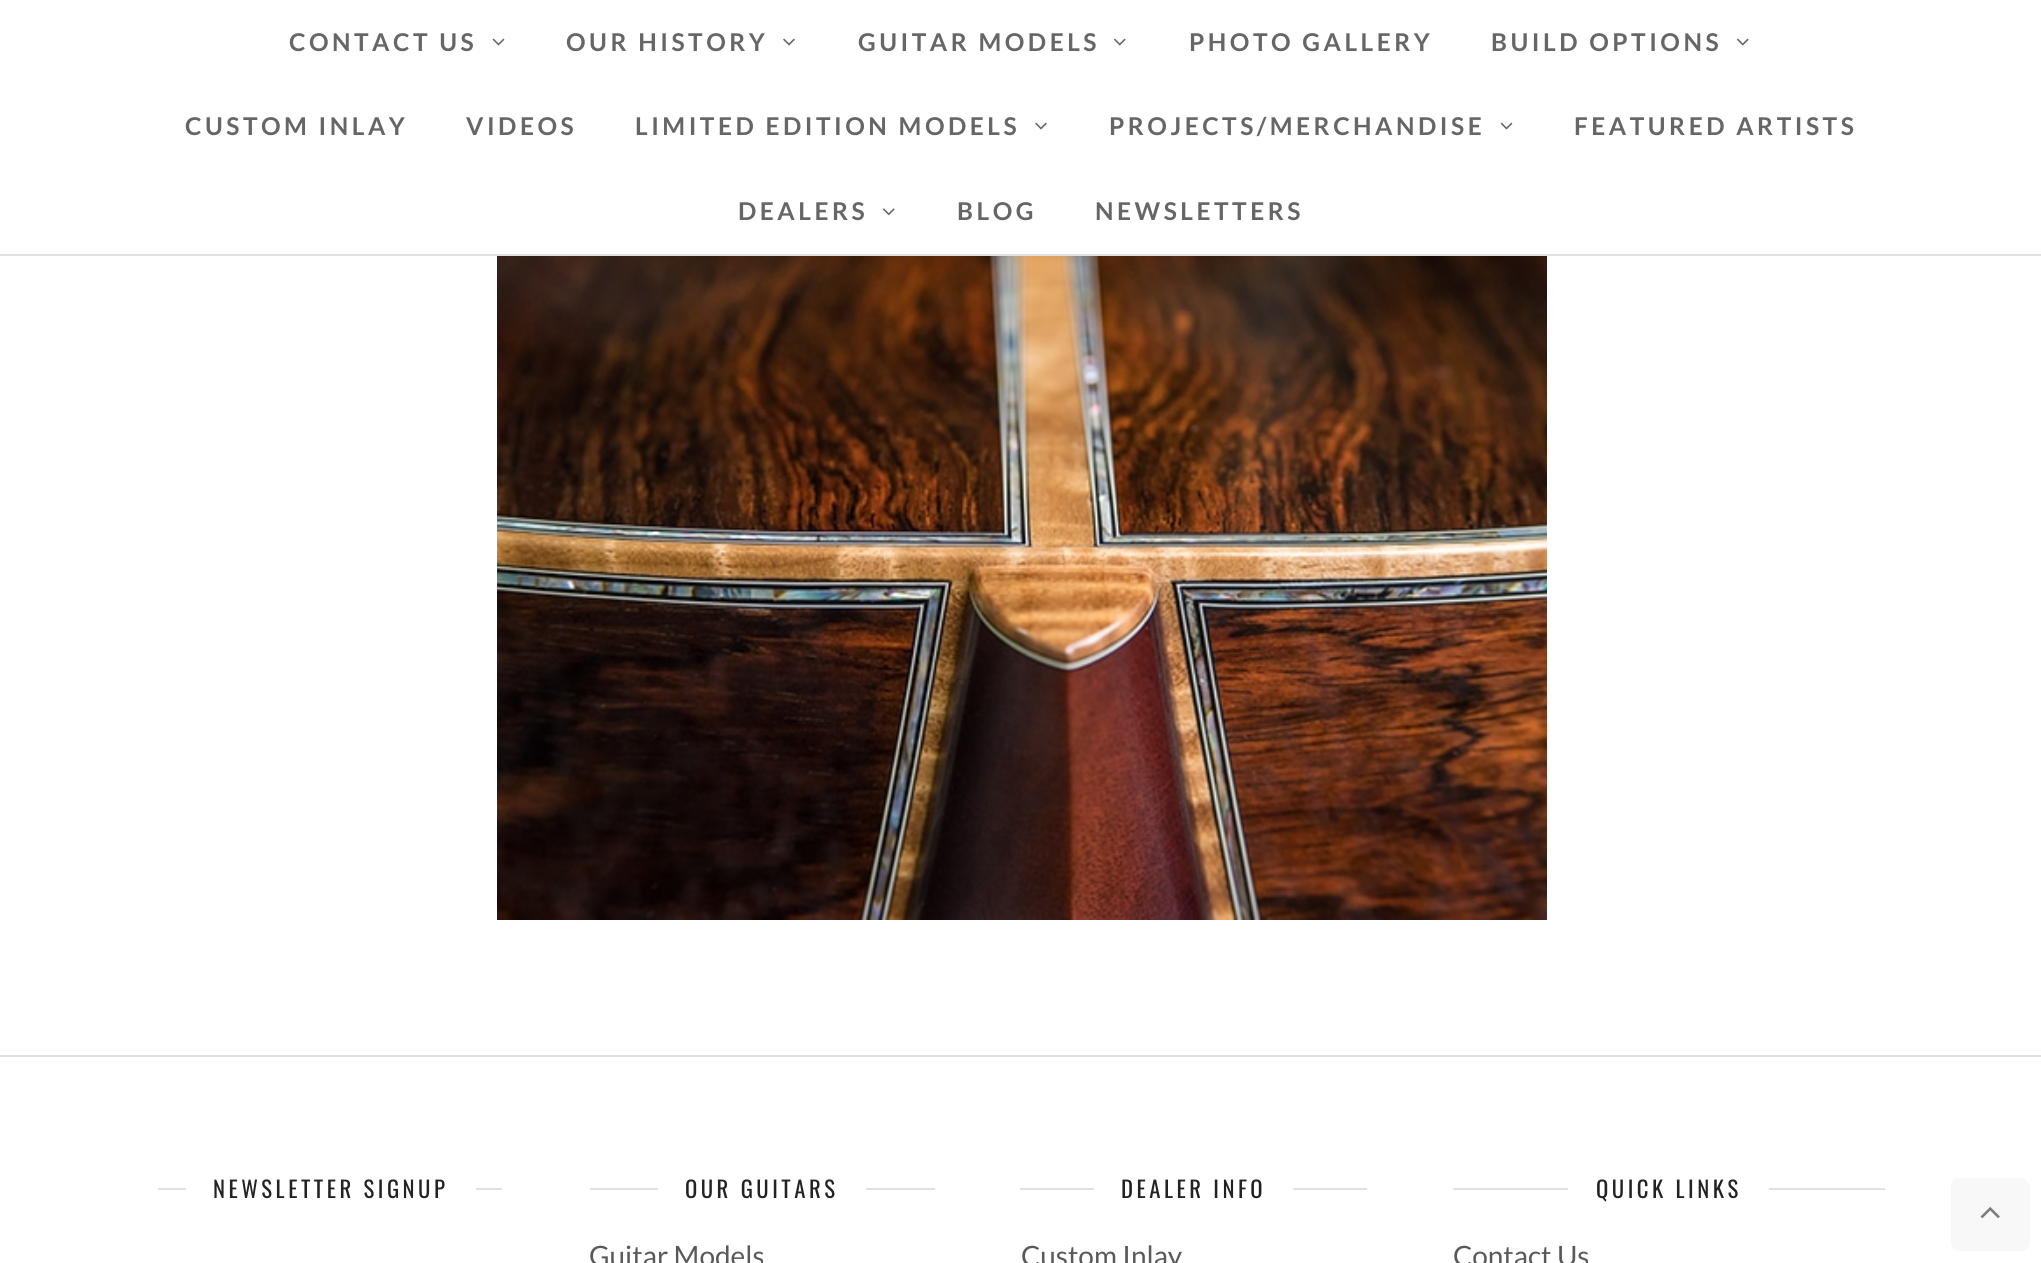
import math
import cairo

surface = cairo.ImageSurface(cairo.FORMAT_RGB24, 2041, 1263)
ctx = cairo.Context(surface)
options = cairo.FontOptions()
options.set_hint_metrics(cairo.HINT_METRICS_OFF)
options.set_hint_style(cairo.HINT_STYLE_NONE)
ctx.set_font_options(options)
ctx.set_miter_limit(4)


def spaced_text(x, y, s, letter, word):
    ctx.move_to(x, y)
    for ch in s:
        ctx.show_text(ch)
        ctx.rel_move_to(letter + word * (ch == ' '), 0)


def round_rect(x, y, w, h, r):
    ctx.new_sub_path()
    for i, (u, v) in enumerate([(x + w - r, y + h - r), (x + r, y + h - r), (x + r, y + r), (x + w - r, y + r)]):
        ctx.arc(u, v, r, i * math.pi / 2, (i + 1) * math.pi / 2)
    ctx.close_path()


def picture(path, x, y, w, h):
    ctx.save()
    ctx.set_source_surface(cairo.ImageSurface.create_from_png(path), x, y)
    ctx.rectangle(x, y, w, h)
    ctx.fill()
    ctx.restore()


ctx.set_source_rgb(1, 1, 1)
ctx.paint()
ctx.set_source_rgb(0.882, 0.882, 0.882)
ctx.rectangle(0, 254, 2041, 2)
ctx.fill()
ctx.select_font_face("Lato", cairo.FONT_SLANT_NORMAL, cairo.FONT_WEIGHT_BOLD)
ctx.set_font_size(24.5)
ctx.set_source_rgb(0.4, 0.4, 0.4)
spaced_text(289, 51, "CONTACT US", 3.5, 0)
picture("img1.png", 492, 38, 13, 8)
spaced_text(566, 51, "OUR HISTORY", 3.5, 0)
picture("img2.png", 783, 38, 12, 8)
spaced_text(858, 51, "GUITAR MODELS", 3.5, 0)
picture("img3.png", 1114, 38, 12, 8)
spaced_text(1189, 51, "PHOTO GALLERY", 3.5, 0)
spaced_text(1491, 51, "BUILD OPTIONS", 3.5, 0)
picture("img3.png", 1737, 38, 12, 8)
spaced_text(185, 135, "CUSTOM INLAY", 3.5, 0)
spaced_text(466, 135, "VIDEOS", 3.5, 0)
spaced_text(635, 135, "LIMITED EDITION MODELS", 3.5, 0)
picture("img2.png", 1035, 122, 12, 8)
spaced_text(1109, 135, "PROJECTS/MERCHANDISE", 3.5, 0)
picture("img1.png", 1500, 122, 13, 8)
spaced_text(1574, 135, "FEATURED ARTISTS", 3.5, 0)
spaced_text(738, 220, "DEALERS", 3.5, 0)
picture("img4.png", 883, 208, 12, 8)
spaced_text(957, 220, "BLOG", 3.5, 0)
spaced_text(1095, 220, "NEWSLETTERS", 3.5, 0)
picture("img5.png", 497, 256, 1050, 664)
ctx.set_source_rgb(0.882, 0.882, 0.882)
ctx.rectangle(0, 1055, 2041, 2)
ctx.fill()
ctx.rectangle(158, 1188, 344, 2)
ctx.fill()
ctx.set_source_rgb(1, 1, 1)
ctx.rectangle(186, 1188, 290, 2)
ctx.fill()
ctx.select_font_face("Oswald")
ctx.set_font_size(22.75)
ctx.set_source_rgb(0.133, 0.133, 0.133)
spaced_text(213, 1198, "NEWSLETTER SIGNUP", 3.5, 0)
ctx.set_source_rgb(0.882, 0.882, 0.882)
ctx.rectangle(590, 1188, 345, 2)
ctx.fill()
ctx.set_source_rgb(1, 1, 1)
ctx.rectangle(658, 1188, 208, 2)
ctx.fill()
ctx.set_source_rgb(0.133, 0.133, 0.133)
spaced_text(685, 1198, "OUR GUITARS", 3.5, 0)
ctx.select_font_face("Lato")
ctx.set_font_size(28)
ctx.set_source_rgb(0.349, 0.349, 0.349)
ctx.move_to(589, 1266)
ctx.show_text("Guitar Models")
ctx.set_source_rgb(0.882, 0.882, 0.882)
ctx.rectangle(1020, 1188, 347, 2)
ctx.fill()
ctx.set_source_rgb(1, 1, 1)
ctx.rectangle(1094, 1188, 199, 2)
ctx.fill()
ctx.select_font_face("Oswald")
ctx.set_font_size(22.75)
ctx.set_source_rgb(0.133, 0.133, 0.133)
spaced_text(1121, 1198, "DEALER INFO", 3.5, 0)
ctx.select_font_face("Lato")
ctx.set_font_size(28)
ctx.set_source_rgb(0.349, 0.349, 0.349)
ctx.move_to(1021, 1266)
ctx.show_text("Custom Inlay")
ctx.set_source_rgb(0.882, 0.882, 0.882)
ctx.rectangle(1453, 1188, 432, 2)
ctx.fill()
ctx.set_source_rgb(1, 1, 1)
ctx.rectangle(1568, 1188, 201, 2)
ctx.fill()
ctx.select_font_face("Oswald")
ctx.set_font_size(22.75)
ctx.set_source_rgb(0.133, 0.133, 0.133)
spaced_text(1596, 1198, "QUICK LINKS", 3.5, 0)
ctx.select_font_face("Lato")
ctx.set_font_size(28)
ctx.set_source_rgb(0.349, 0.349, 0.349)
ctx.move_to(1453, 1266)
ctx.show_text("Contact Us")
ctx.set_source_rgb(0.969, 0.969, 0.969)
round_rect(1951, 1178, 79, 73, 9)
ctx.fill()
picture("img6.png", 1980, 1207, 20, 11)
surface.write_to_png("page.png")
